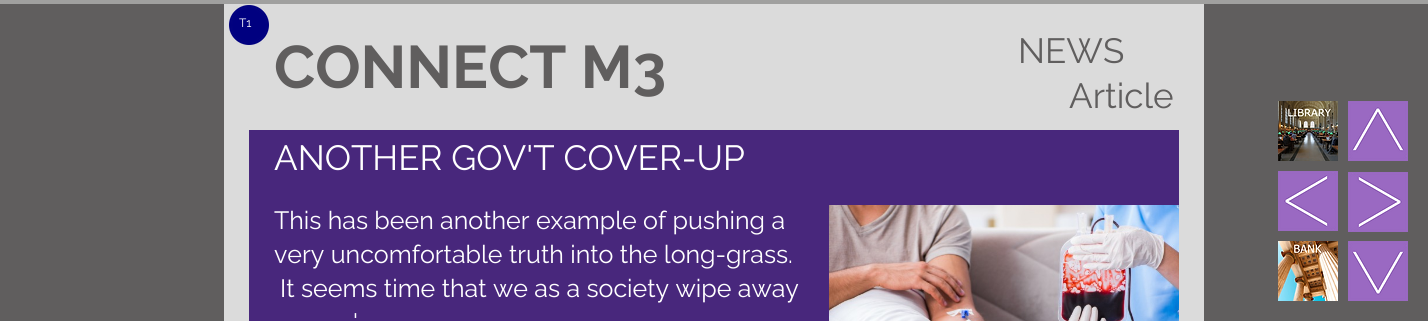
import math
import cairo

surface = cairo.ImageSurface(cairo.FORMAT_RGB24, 1428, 321)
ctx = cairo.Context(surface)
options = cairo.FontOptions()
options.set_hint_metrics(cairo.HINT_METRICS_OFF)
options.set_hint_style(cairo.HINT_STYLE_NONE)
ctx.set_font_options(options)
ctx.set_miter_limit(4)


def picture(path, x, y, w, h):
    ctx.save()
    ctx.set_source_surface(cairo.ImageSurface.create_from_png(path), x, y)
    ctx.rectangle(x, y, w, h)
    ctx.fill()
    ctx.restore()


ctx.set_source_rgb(0.376, 0.369, 0.369)
ctx.paint()
ctx.set_source_rgb(0.627, 0.627, 0.624)
ctx.rectangle(0, 0, 1428, 4)
ctx.fill()
ctx.set_source_rgb(0.859, 0.859, 0.859)
ctx.rectangle(224, 4, 980, 317)
ctx.fill()
picture("img1.png", 229, 5, 40, 40)
ctx.select_font_face("Raleway")
ctx.set_font_size(12)
ctx.set_source_rgb(1, 1, 1)
ctx.move_to(239, 27)
ctx.show_text("T1")
ctx.select_font_face("Raleway", cairo.FONT_SLANT_NORMAL, cairo.FONT_WEIGHT_BOLD)
ctx.set_font_size(60)
ctx.set_source_rgb(0.376, 0.369, 0.369)
ctx.move_to(274, 88)
ctx.show_text("CONNECT M3")
ctx.select_font_face("Raleway")
ctx.set_font_size(35)
ctx.move_to(1018, 63)
ctx.show_text("NEWS")
ctx.move_to(1069, 108)
ctx.show_text("Article")
ctx.set_source_rgb(0.282, 0.153, 0.486)
ctx.rectangle(249, 130, 930, 191)
ctx.fill()
ctx.set_source_rgb(1, 1, 1)
ctx.move_to(274, 170)
ctx.show_text("ANOTHER GOV'T COVER-UP")
ctx.set_font_size(25)
ctx.move_to(274, 229)
ctx.show_text("This has been another example of pushing a")
ctx.move_to(274, 263)
ctx.show_text("very uncomfortable truth into the long-grass.")
ctx.move_to(280, 297)
ctx.show_text("It seems time that we as a society wipe away")
ctx.move_to(353, 331)
ctx.show_text("'")
picture("img2.png", 829, 205, 350, 116)
picture("img3.png", 1278, 101, 60, 60)
picture("img4.png", 1348, 101, 60, 60)
picture("img5.png", 1278, 171, 60, 60)
picture("img6.png", 1348, 172, 60, 60)
picture("img7.png", 1278, 241, 60, 60)
picture("img8.png", 1348, 241, 60, 60)
surface.write_to_png("page.png")
